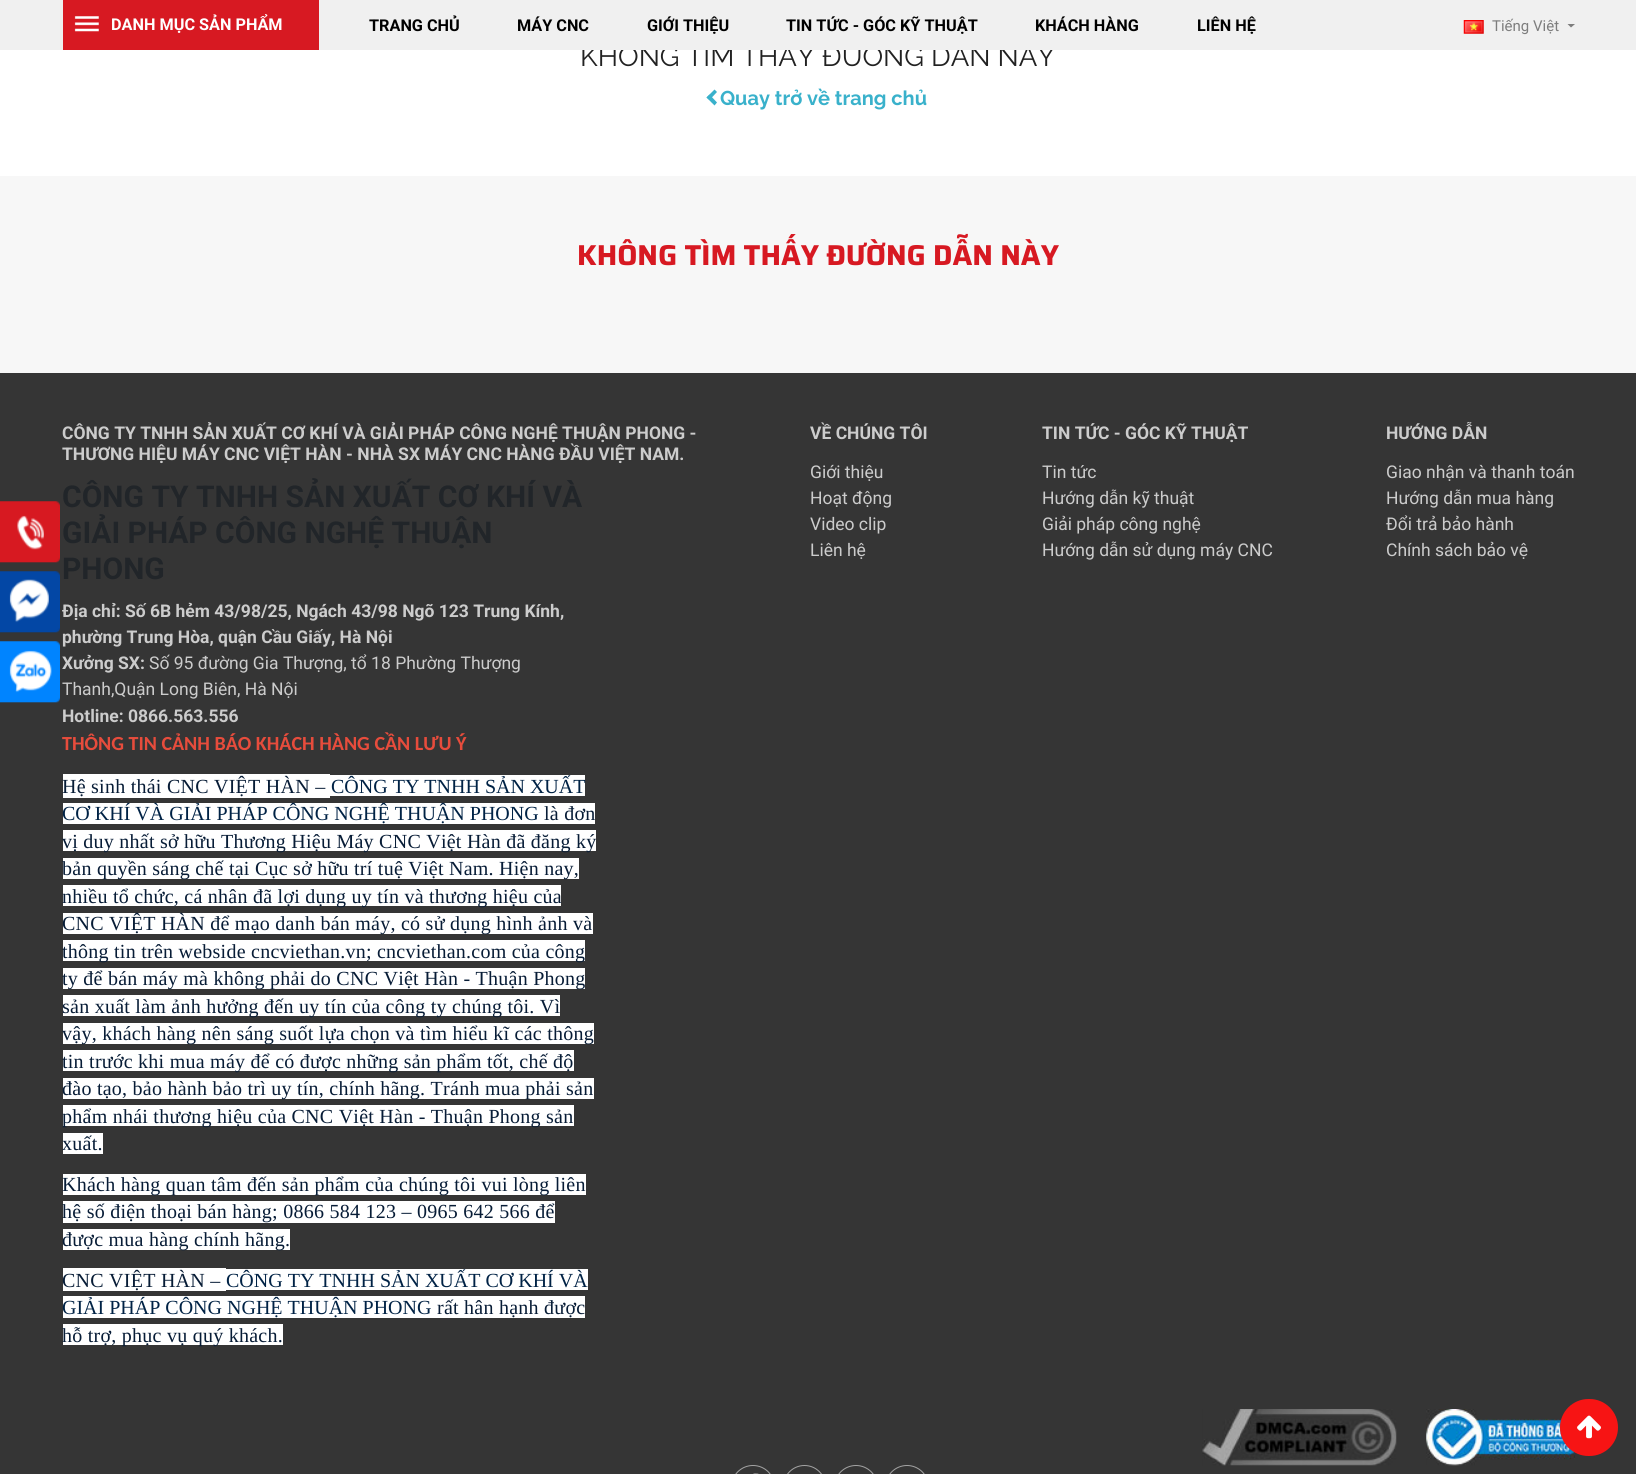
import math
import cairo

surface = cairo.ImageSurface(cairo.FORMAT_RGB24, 1636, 1474)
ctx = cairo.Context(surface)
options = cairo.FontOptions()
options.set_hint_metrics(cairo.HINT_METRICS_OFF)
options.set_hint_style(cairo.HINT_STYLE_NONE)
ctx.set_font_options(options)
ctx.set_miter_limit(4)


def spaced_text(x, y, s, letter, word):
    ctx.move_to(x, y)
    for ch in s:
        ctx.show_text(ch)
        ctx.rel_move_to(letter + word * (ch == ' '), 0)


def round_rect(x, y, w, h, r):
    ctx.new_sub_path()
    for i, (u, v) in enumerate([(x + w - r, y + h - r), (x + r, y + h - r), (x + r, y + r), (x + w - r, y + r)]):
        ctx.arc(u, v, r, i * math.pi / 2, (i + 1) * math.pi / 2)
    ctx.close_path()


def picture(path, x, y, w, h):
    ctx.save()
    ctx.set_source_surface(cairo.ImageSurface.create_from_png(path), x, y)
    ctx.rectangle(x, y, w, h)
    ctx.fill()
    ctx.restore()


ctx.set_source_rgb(1, 1, 1)
ctx.paint()
ctx.select_font_face("Raleway")
ctx.set_font_size(27.5)
ctx.set_source_rgb(0.133, 0.133, 0.133)
ctx.move_to(580, 66)
ctx.show_text("KHÔNG TÌM THẤY ĐƯỜNG DẪN NÀY")
ctx.set_source_rgb(0.941, 0.941, 0.941)
ctx.rectangle(0, 0, 1636, 50)
ctx.fill()
ctx.set_source_rgb(0.843, 0.098, 0.133)
ctx.rectangle(63, 0, 256, 50)
ctx.fill()
picture("img1.png", 74, 16, 25, 16)
ctx.select_font_face("Roboto", cairo.FONT_SLANT_NORMAL, cairo.FONT_WEIGHT_BOLD)
ctx.set_font_size(16.25)
ctx.set_source_rgb(1, 1, 1)
ctx.move_to(111, 30)
ctx.show_text("DANH MỤC SẢN PHẨM")
ctx.set_source_rgb(0, 0, 0)
ctx.move_to(369, 31)
ctx.show_text("TRANG CHỦ")
ctx.move_to(517, 31)
ctx.show_text("MÁY CNC")
ctx.move_to(647, 31)
ctx.show_text("GIỚI THIỆU")
ctx.move_to(786, 31)
ctx.show_text("TIN TỨC - GÓC KỸ THUẬT")
ctx.move_to(1035, 31)
ctx.show_text("KHÁCH HÀNG")
ctx.move_to(1197, 31)
ctx.show_text("LIÊN HỆ")
picture("img2.png", 1463, 20, 21, 14)
ctx.select_font_face("Roboto")
ctx.set_font_size(15)
ctx.set_source_rgb(0.49, 0.49, 0.49)
ctx.move_to(1492, 31)
ctx.show_text("Tiếng Việt")
ctx.new_path()
ctx.move_to(1567.5, 24)
ctx.line_to(1575, 24)
ctx.line_to(1571, 27.5)
ctx.close_path()
ctx.fill()
ctx.set_source_rgb(0.224, 0.694, 0.796)
ctx.new_path()
ctx.move_to(717, 102.5)
ctx.line_to(714.5, 105.5)
ctx.line_to(706.5, 97.5)
ctx.line_to(709.5, 94.5)
ctx.close_path()
ctx.fill()
ctx.new_path()
ctx.move_to(717, 92)
ctx.line_to(709.5, 100)
ctx.line_to(706.5, 97.5)
ctx.line_to(714.5, 89.5)
ctx.close_path()
ctx.fill()
ctx.select_font_face("Raleway", cairo.FONT_SLANT_NORMAL, cairo.FONT_WEIGHT_BOLD)
ctx.set_font_size(20)
ctx.move_to(720, 105)
ctx.show_text("Quay trở về trang chủ")
ctx.set_source_rgb(0.965, 0.965, 0.965)
ctx.rectangle(0, 176, 1636, 197)
ctx.fill()
ctx.select_font_face("Saira Thin")
ctx.set_font_size(28.75)
ctx.set_source_rgb(0.843, 0.098, 0.133)
ctx.move_to(577, 265)
ctx.show_text("KHÔNG TÌM THẤY ĐƯỜNG DẪN NÀY")
ctx.set_source_rgb(0.208, 0.208, 0.208)
ctx.rectangle(0, 373, 1636, 1101)
ctx.fill()
picture("img3.png", 0, 501, 60, 62)
picture("img4.png", 0, 571, 60, 62)
picture("img5.png", 0, 641, 60, 62)
ctx.select_font_face("Roboto", cairo.FONT_SLANT_NORMAL, cairo.FONT_WEIGHT_BOLD)
ctx.set_font_size(17.5)
ctx.set_source_rgb(0.8, 0.8, 0.8)
ctx.move_to(62, 439)
ctx.show_text("CÔNG TY TNHH SẢN XUẤT CƠ KHÍ VÀ GIẢI PHÁP CÔNG NGHỆ THUẬN PHONG -")
ctx.move_to(62, 460)
ctx.show_text("THƯƠNG HIỆU MÁY CNC VIỆT HÀN - NHÀ SX MÁY CNC HÀNG ĐẦU VIỆT NAM.")
ctx.set_font_size(30)
ctx.set_source_rgb(0.129, 0.145, 0.161)
ctx.move_to(62, 507)
ctx.show_text("CÔNG TY TNHH SẢN XUẤT CƠ KHÍ VÀ")
ctx.move_to(62, 543)
ctx.show_text("GIẢI PHÁP CÔNG NGHỆ THUẬN")
ctx.move_to(62, 579)
ctx.show_text("PHONG")
ctx.set_font_size(17.5)
ctx.set_source_rgb(0.8, 0.8, 0.8)
ctx.move_to(62, 617)
ctx.show_text("Địa chỉ: Số 6B hẻm 43/98/25, Ngách 43/98 Ngõ 123 Trung Kính,")
ctx.move_to(62, 643)
ctx.show_text("phường Trung Hòa, quận Cầu Giấy, Hà Nội")
ctx.move_to(62, 669)
ctx.show_text("Xưởng SX:")
ctx.select_font_face("Roboto")
ctx.move_to(149, 669)
ctx.show_text("Số 95 đường Gia Thượng, tổ 18 Phường Thượng")
ctx.move_to(62, 695)
ctx.show_text("Thanh,Quận Long Biên, Hà Nội")
ctx.select_font_face("Roboto", cairo.FONT_SLANT_NORMAL, cairo.FONT_WEIGHT_BOLD)
ctx.move_to(62, 722)
ctx.show_text("Hotline: 0866.563.556")
ctx.select_font_face("Carlito", cairo.FONT_SLANT_NORMAL, cairo.FONT_WEIGHT_BOLD)
ctx.set_font_size(20)
ctx.set_source_rgb(0.906, 0.298, 0.235)
ctx.move_to(62, 750)
ctx.show_text("THÔNG TIN CẢNH BÁO KHÁCH HÀNG CẦN LƯU Ý")
ctx.set_source_rgb(1, 1, 1)
ctx.rectangle(63, 774, 267, 24)
ctx.fill()
ctx.select_font_face("Liberation Serif")
ctx.set_source_rgb(0.031, 0.11, 0.212)
spaced_text(62, 793, "Hệ sinh thái CNC VIỆT HÀN –", 0.25, 0)
ctx.set_source_rgb(1, 1, 1)
ctx.rectangle(330, 775, 255, 21)
ctx.fill()
ctx.set_source_rgb(0, 0.133, 0.271)
ctx.move_to(331, 793)
ctx.show_text("CÔNG TY TNHH SẢN XUẤT")
ctx.set_source_rgb(1, 1, 1)
ctx.rectangle(63, 803, 532, 21)
ctx.fill()
ctx.set_source_rgb(0, 0.133, 0.271)
ctx.move_to(62, 820)
ctx.show_text("CƠ KHÍ VÀ GIẢI PHÁP CÔNG NGHỆ THUẬN PHONG")
ctx.set_source_rgb(0.031, 0.11, 0.212)
spaced_text(544, 820, "là đơn", 0.25, 0)
ctx.set_source_rgb(1, 1, 1)
ctx.rectangle(63, 830, 533, 21)
ctx.fill()
ctx.set_source_rgb(0.031, 0.11, 0.212)
spaced_text(62, 848, "vị duy nhất sở hữu Thương Hiệu Máy CNC Việt Hàn đã đăng ký", 0.25, 0)
ctx.set_source_rgb(1, 1, 1)
ctx.rectangle(63, 858, 516, 21)
ctx.fill()
ctx.set_source_rgb(0.031, 0.11, 0.212)
spaced_text(62, 875, "bản quyền sáng chế tại Cục sở hữu trí tuệ Việt Nam. Hiện nay,", 0.25, 0)
ctx.set_source_rgb(1, 1, 1)
ctx.rectangle(63, 885, 498, 21)
ctx.fill()
ctx.set_source_rgb(0.031, 0.11, 0.212)
spaced_text(62, 903, "nhiều tổ chức, cá nhân đã lợi dụng uy tín và thương hiệu của", 0.25, 0)
ctx.set_source_rgb(1, 1, 1)
ctx.rectangle(63, 913, 530, 21)
ctx.fill()
ctx.set_source_rgb(0.031, 0.11, 0.212)
spaced_text(62, 930, "CNC VIỆT HÀN để mạo danh bán máy, có sử dụng hình ảnh và", 0.25, 0)
ctx.set_source_rgb(1, 1, 1)
ctx.rectangle(63, 940, 522, 21)
ctx.fill()
ctx.set_source_rgb(0.031, 0.11, 0.212)
spaced_text(62, 958, "thông tin trên webside cncviethan.vn; cncviethan.com của công", 0.25, 0)
ctx.set_source_rgb(1, 1, 1)
ctx.rectangle(63, 968, 522, 21)
ctx.fill()
ctx.set_source_rgb(0.031, 0.11, 0.212)
spaced_text(62, 985, "ty để bán máy mà không phải do CNC Việt Hàn - Thuận Phong", 0.25, 0)
ctx.set_source_rgb(1, 1, 1)
ctx.rectangle(63, 995, 497, 21)
ctx.fill()
ctx.set_source_rgb(0.031, 0.11, 0.212)
spaced_text(62, 1013, "sản xuất làm ảnh hưởng đến uy tín của công ty chúng tôi. Vì", 0.25, 0)
ctx.set_source_rgb(1, 1, 1)
ctx.rectangle(63, 1023, 531, 21)
ctx.fill()
ctx.set_source_rgb(0.031, 0.11, 0.212)
spaced_text(62, 1040, "vậy, khách hàng nên sáng suốt lựa chọn và tìm hiểu kĩ các thông", 0.25, 0)
ctx.set_source_rgb(1, 1, 1)
ctx.rectangle(63, 1050, 511, 21)
ctx.fill()
ctx.set_source_rgb(0.031, 0.11, 0.212)
spaced_text(62, 1068, "tin trước khi mua máy để có được những sản phẩm tốt, chế độ", 0.25, 0)
ctx.set_source_rgb(1, 1, 1)
ctx.rectangle(63, 1078, 531, 21)
ctx.fill()
ctx.set_source_rgb(0.031, 0.11, 0.212)
spaced_text(62, 1095, "đào tạo, bảo hành bảo trì uy tín, chính hãng. Tránh mua phải sản", 0.25, 0)
ctx.set_source_rgb(1, 1, 1)
ctx.rectangle(63, 1105, 511, 21)
ctx.fill()
ctx.set_source_rgb(0.031, 0.11, 0.212)
spaced_text(62, 1123, "phẩm nhái thương hiệu của CNC Việt Hàn - Thuận Phong sản", 0.25, 0)
ctx.set_source_rgb(1, 1, 1)
ctx.rectangle(63, 1133, 40, 21)
ctx.fill()
ctx.set_source_rgb(0.031, 0.11, 0.212)
spaced_text(62, 1150, "xuất.", 0.25, 0)
ctx.set_source_rgb(1, 1, 1)
ctx.rectangle(63, 1174, 523, 21)
ctx.fill()
ctx.set_source_rgb(0.031, 0.11, 0.212)
spaced_text(62, 1191, "Khách hàng quan tâm đến sản phẩm của chúng tôi vui lòng liên", 0.25, 0)
ctx.set_source_rgb(1, 1, 1)
ctx.rectangle(63, 1201, 492, 22)
ctx.fill()
ctx.set_source_rgb(0.031, 0.11, 0.212)
spaced_text(62, 1218, "hệ số điện thoại bán hàng; 0866 584 123 – 0965 642 566 để", 0.25, 0)
ctx.set_source_rgb(1, 1, 1)
ctx.rectangle(63, 1229, 227, 21)
ctx.fill()
ctx.set_source_rgb(0.031, 0.11, 0.212)
spaced_text(62, 1246, "được mua hàng chính hãng.", 0.25, 0)
ctx.set_source_rgb(1, 1, 1)
ctx.rectangle(63, 1268, 163, 23)
ctx.fill()
ctx.set_source_rgb(0.031, 0.11, 0.212)
spaced_text(62, 1287, "CNC VIỆT HÀN –", 0.25, 0)
ctx.set_source_rgb(1, 1, 1)
ctx.rectangle(226, 1269, 362, 21)
ctx.fill()
ctx.set_source_rgb(0, 0.133, 0.271)
ctx.move_to(226, 1287)
ctx.show_text("CÔNG TY TNHH SẢN XUẤT CƠ KHÍ VÀ")
ctx.set_source_rgb(1, 1, 1)
ctx.rectangle(63, 1296, 522, 22)
ctx.fill()
ctx.set_source_rgb(0, 0.133, 0.271)
ctx.move_to(62, 1314)
ctx.show_text("GIẢI PHÁP CÔNG NGHỆ THUẬN PHONG")
ctx.set_source_rgb(0.031, 0.11, 0.212)
spaced_text(437, 1314, "rất hân hạnh được", 0.25, 0)
ctx.set_source_rgb(1, 1, 1)
ctx.rectangle(63, 1324, 220, 21)
ctx.fill()
ctx.set_source_rgb(0.031, 0.11, 0.212)
spaced_text(62, 1342, "hỗ trợ, phục vụ quý khách.", 0.25, 0)
ctx.select_font_face("Roboto", cairo.FONT_SLANT_NORMAL, cairo.FONT_WEIGHT_BOLD)
ctx.set_font_size(17.5)
ctx.set_source_rgb(0.8, 0.8, 0.8)
ctx.move_to(810, 439)
ctx.show_text("VỀ CHÚNG TÔI")
ctx.select_font_face("Roboto")
ctx.move_to(810, 478)
ctx.show_text("Giới thiệu")
ctx.move_to(810, 504)
ctx.show_text("Hoạt động")
ctx.move_to(810, 530)
ctx.show_text("Video clip")
ctx.move_to(810, 556)
ctx.show_text("Liên hệ")
ctx.select_font_face("Roboto", cairo.FONT_SLANT_NORMAL, cairo.FONT_WEIGHT_BOLD)
ctx.move_to(1042, 439)
ctx.show_text("TIN TỨC - GÓC KỸ THUẬT")
ctx.select_font_face("Roboto")
ctx.move_to(1042, 478)
ctx.show_text("Tin tức")
ctx.move_to(1042, 504)
ctx.show_text("Hướng dẫn kỹ thuật")
ctx.move_to(1042, 530)
ctx.show_text("Giải pháp công nghệ")
ctx.move_to(1042, 556)
ctx.show_text("Hướng dẫn sử dụng máy CNC")
ctx.select_font_face("Roboto", cairo.FONT_SLANT_NORMAL, cairo.FONT_WEIGHT_BOLD)
ctx.move_to(1386, 439)
ctx.show_text("HƯỚNG DẪN")
ctx.select_font_face("Roboto")
ctx.move_to(1386, 478)
ctx.show_text("Giao nhận và thanh toán")
ctx.move_to(1386, 504)
ctx.show_text("Hướng dẫn mua hàng")
ctx.move_to(1386, 530)
ctx.show_text("Đổi trả bảo hành")
ctx.move_to(1386, 556)
ctx.show_text("Chính sách bảo vệ")
picture("img6.png", 1202, 1409, 195, 57)
picture("img7.png", 1426, 1409, 149, 57)
round_rect(731.5, 1465.5, 43, 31, 21.5)
ctx.set_source_rgb(0.639, 0.639, 0.639)
ctx.set_line_width(1)
ctx.stroke()
picture("img8.png", 753, 1473, 6, 1)
round_rect(783.5, 1465.5, 42, 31, 21)
ctx.stroke()
round_rect(834.5, 1465.5, 43, 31, 21.5)
ctx.stroke()
round_rect(885.5, 1465.5, 43, 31, 21.5)
ctx.stroke()
ctx.set_source_rgb(0.965, 0.082, 0.082)
round_rect(1560, 1399, 58, 57, 28.5)
ctx.fill()
picture("img9.png", 1577, 1415, 24, 24)
surface.write_to_png("page.png")
